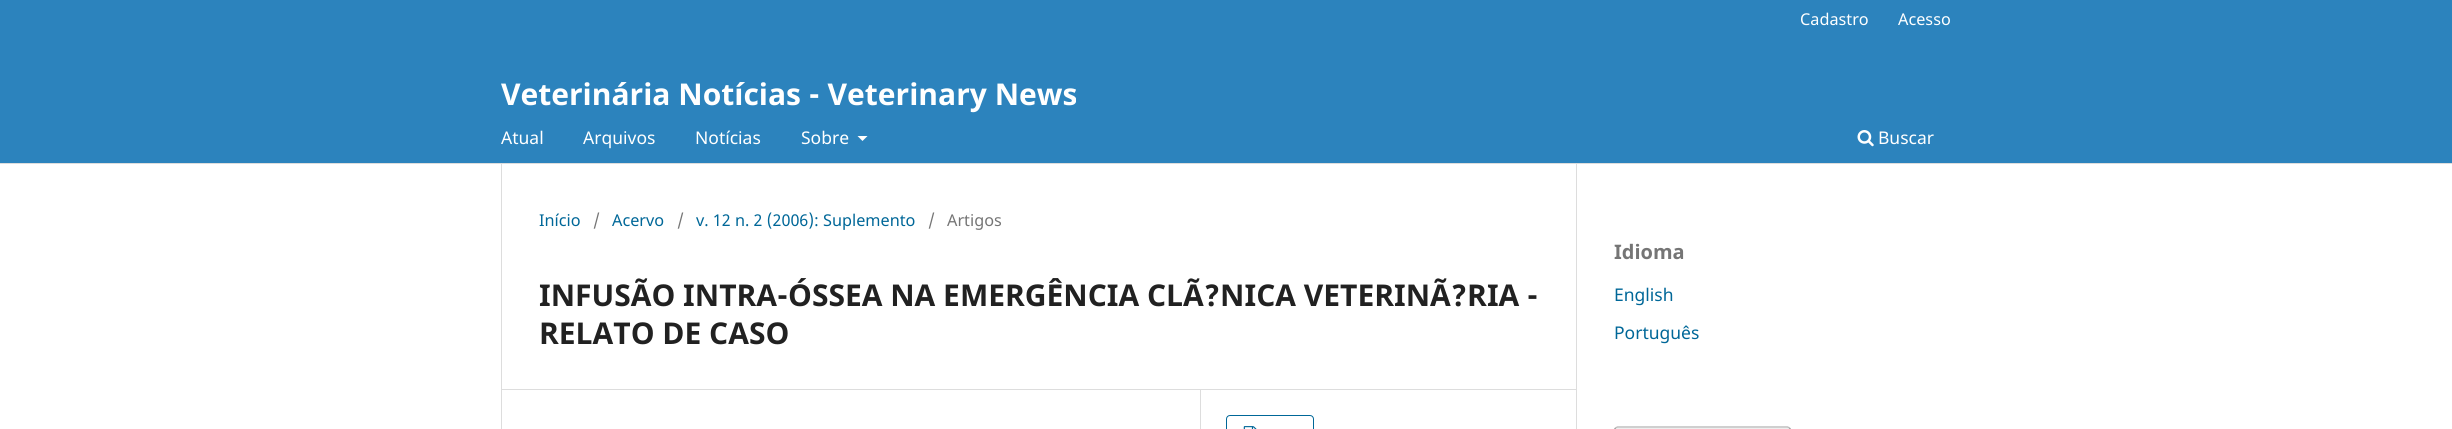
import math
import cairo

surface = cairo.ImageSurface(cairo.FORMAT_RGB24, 2452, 429)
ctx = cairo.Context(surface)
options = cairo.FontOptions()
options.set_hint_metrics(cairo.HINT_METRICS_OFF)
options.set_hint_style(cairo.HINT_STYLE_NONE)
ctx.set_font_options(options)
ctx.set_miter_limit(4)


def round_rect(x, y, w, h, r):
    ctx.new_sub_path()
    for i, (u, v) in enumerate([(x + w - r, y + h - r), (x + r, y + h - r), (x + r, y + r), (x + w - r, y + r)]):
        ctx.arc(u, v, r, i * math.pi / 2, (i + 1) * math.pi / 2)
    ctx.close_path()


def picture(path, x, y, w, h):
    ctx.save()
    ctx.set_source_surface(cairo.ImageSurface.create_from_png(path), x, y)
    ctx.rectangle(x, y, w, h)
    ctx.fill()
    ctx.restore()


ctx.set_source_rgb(1, 1, 1)
ctx.paint()
ctx.set_source_rgb(0.173, 0.514, 0.741)
ctx.rectangle(0, 0, 2452, 163)
ctx.fill()
ctx.set_source_rgb(0.867, 0.867, 0.867)
ctx.rectangle(0, 163, 2452, 1)
ctx.fill()
ctx.select_font_face("Noto Sans")
ctx.set_font_size(16.25)
ctx.set_source_rgb(1, 1, 1)
ctx.move_to(1800, 25)
ctx.show_text("Cadastro")
ctx.move_to(1898, 25)
ctx.show_text("Acesso")
ctx.set_font_size(17.5)
ctx.move_to(501, 144)
ctx.show_text("Atual")
ctx.move_to(583, 144)
ctx.show_text("Arquivos")
ctx.move_to(695, 144)
ctx.show_text("Notícias")
ctx.move_to(801, 144)
ctx.show_text("Sobre")
ctx.new_path()
ctx.move_to(857.5, 136)
ctx.line_to(867.5, 136)
ctx.line_to(862.5, 141)
ctx.close_path()
ctx.fill()
picture("img1.png", 1857, 130, 17, 17)
ctx.move_to(1878, 144)
ctx.show_text("Buscar")
ctx.select_font_face("Noto Sans", cairo.FONT_SLANT_NORMAL, cairo.FONT_WEIGHT_BOLD)
ctx.set_font_size(30)
ctx.move_to(501, 105)
ctx.show_text("Veterinária Notícias - Veterinary News")
ctx.set_source_rgb(0.867, 0.867, 0.867)
ctx.rectangle(501, 389, 1075, 1)
ctx.fill()
ctx.rectangle(501, 164, 1, 265)
ctx.fill()
ctx.select_font_face("Noto Sans")
ctx.set_font_size(16.25)
ctx.set_source_rgb(0, 0.404, 0.596)
ctx.move_to(539, 226)
ctx.show_text("Início")
ctx.set_source_rgb(0.459, 0.459, 0.459)
ctx.move_to(593, 226)
ctx.show_text("/")
ctx.set_source_rgb(0, 0.404, 0.596)
ctx.move_to(612, 226)
ctx.show_text("Acervo")
ctx.set_source_rgb(0.459, 0.459, 0.459)
ctx.move_to(677, 226)
ctx.show_text("/")
ctx.set_source_rgb(0, 0.404, 0.596)
ctx.move_to(696, 226)
ctx.show_text("v. 12 n. 2 (2006): Suplemento")
ctx.set_source_rgb(0.459, 0.459, 0.459)
ctx.move_to(928, 226)
ctx.show_text("/")
ctx.move_to(947, 226)
ctx.show_text("Artigos")
ctx.select_font_face("Noto Sans", cairo.FONT_SLANT_NORMAL, cairo.FONT_WEIGHT_BOLD)
ctx.set_font_size(30)
ctx.set_source_rgb(0.129, 0.129, 0.129)
ctx.move_to(539, 306)
ctx.show_text("INFUSÃO INTRA-ÓSSEA NA EMERGÊNCIA CLÃ?NICA VETERINÃ?RIA -")
ctx.move_to(539, 344)
ctx.show_text("RELATO DE CASO")
ctx.set_source_rgb(0.867, 0.867, 0.867)
ctx.rectangle(1200, 390, 1, 39)
ctx.fill()
round_rect(1226.5, 415.5, 87, 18, 3.5)
ctx.set_source_rgb(0, 0.404, 0.596)
ctx.set_line_width(1)
ctx.stroke()
picture("img2.png", 1243, 426, 14, 3)
ctx.set_source_rgb(0.867, 0.867, 0.867)
ctx.rectangle(1576, 164, 1, 265)
ctx.fill()
ctx.set_font_size(20)
ctx.set_source_rgb(0.459, 0.459, 0.459)
ctx.move_to(1614, 259)
ctx.show_text("Idioma")
ctx.select_font_face("Noto Sans")
ctx.set_font_size(17.5)
ctx.set_source_rgb(0, 0.404, 0.596)
ctx.move_to(1614, 301)
ctx.show_text("English")
ctx.move_to(1614, 339)
ctx.show_text("Português")
ctx.set_source_rgb(0.933, 0.933, 0.933)
round_rect(1614, 426, 177, 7, 4)
ctx.fill()
ctx.new_path()
ctx.move_to(1615.5, 428)
ctx.line_to(1617.5, 427)
ctx.line_to(1787.5, 427)
ctx.line_to(1789.5, 428)
ctx.set_source_rgb(0.733, 0.733, 0.733)
ctx.set_line_width(1.2)
ctx.stroke()
ctx.new_path()
ctx.move_to(1789.5, 428)
ctx.curve_to(1792, 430, 1790.5, 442, 1790.5, 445)
ctx.line_to(1790.5, 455)
ctx.curve_to(1790.5, 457.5, 1791.5, 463, 1787.5, 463)
ctx.line_to(1617.5, 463)
ctx.curve_to(1613.5, 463, 1614.5, 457.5, 1614.5, 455)
ctx.line_to(1614.5, 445)
ctx.curve_to(1614.5, 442, 1613, 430, 1615.5, 428)
ctx.set_source_rgba(0, 0, 0, 0.4)
ctx.stroke()
surface.write_to_png("page.png")
